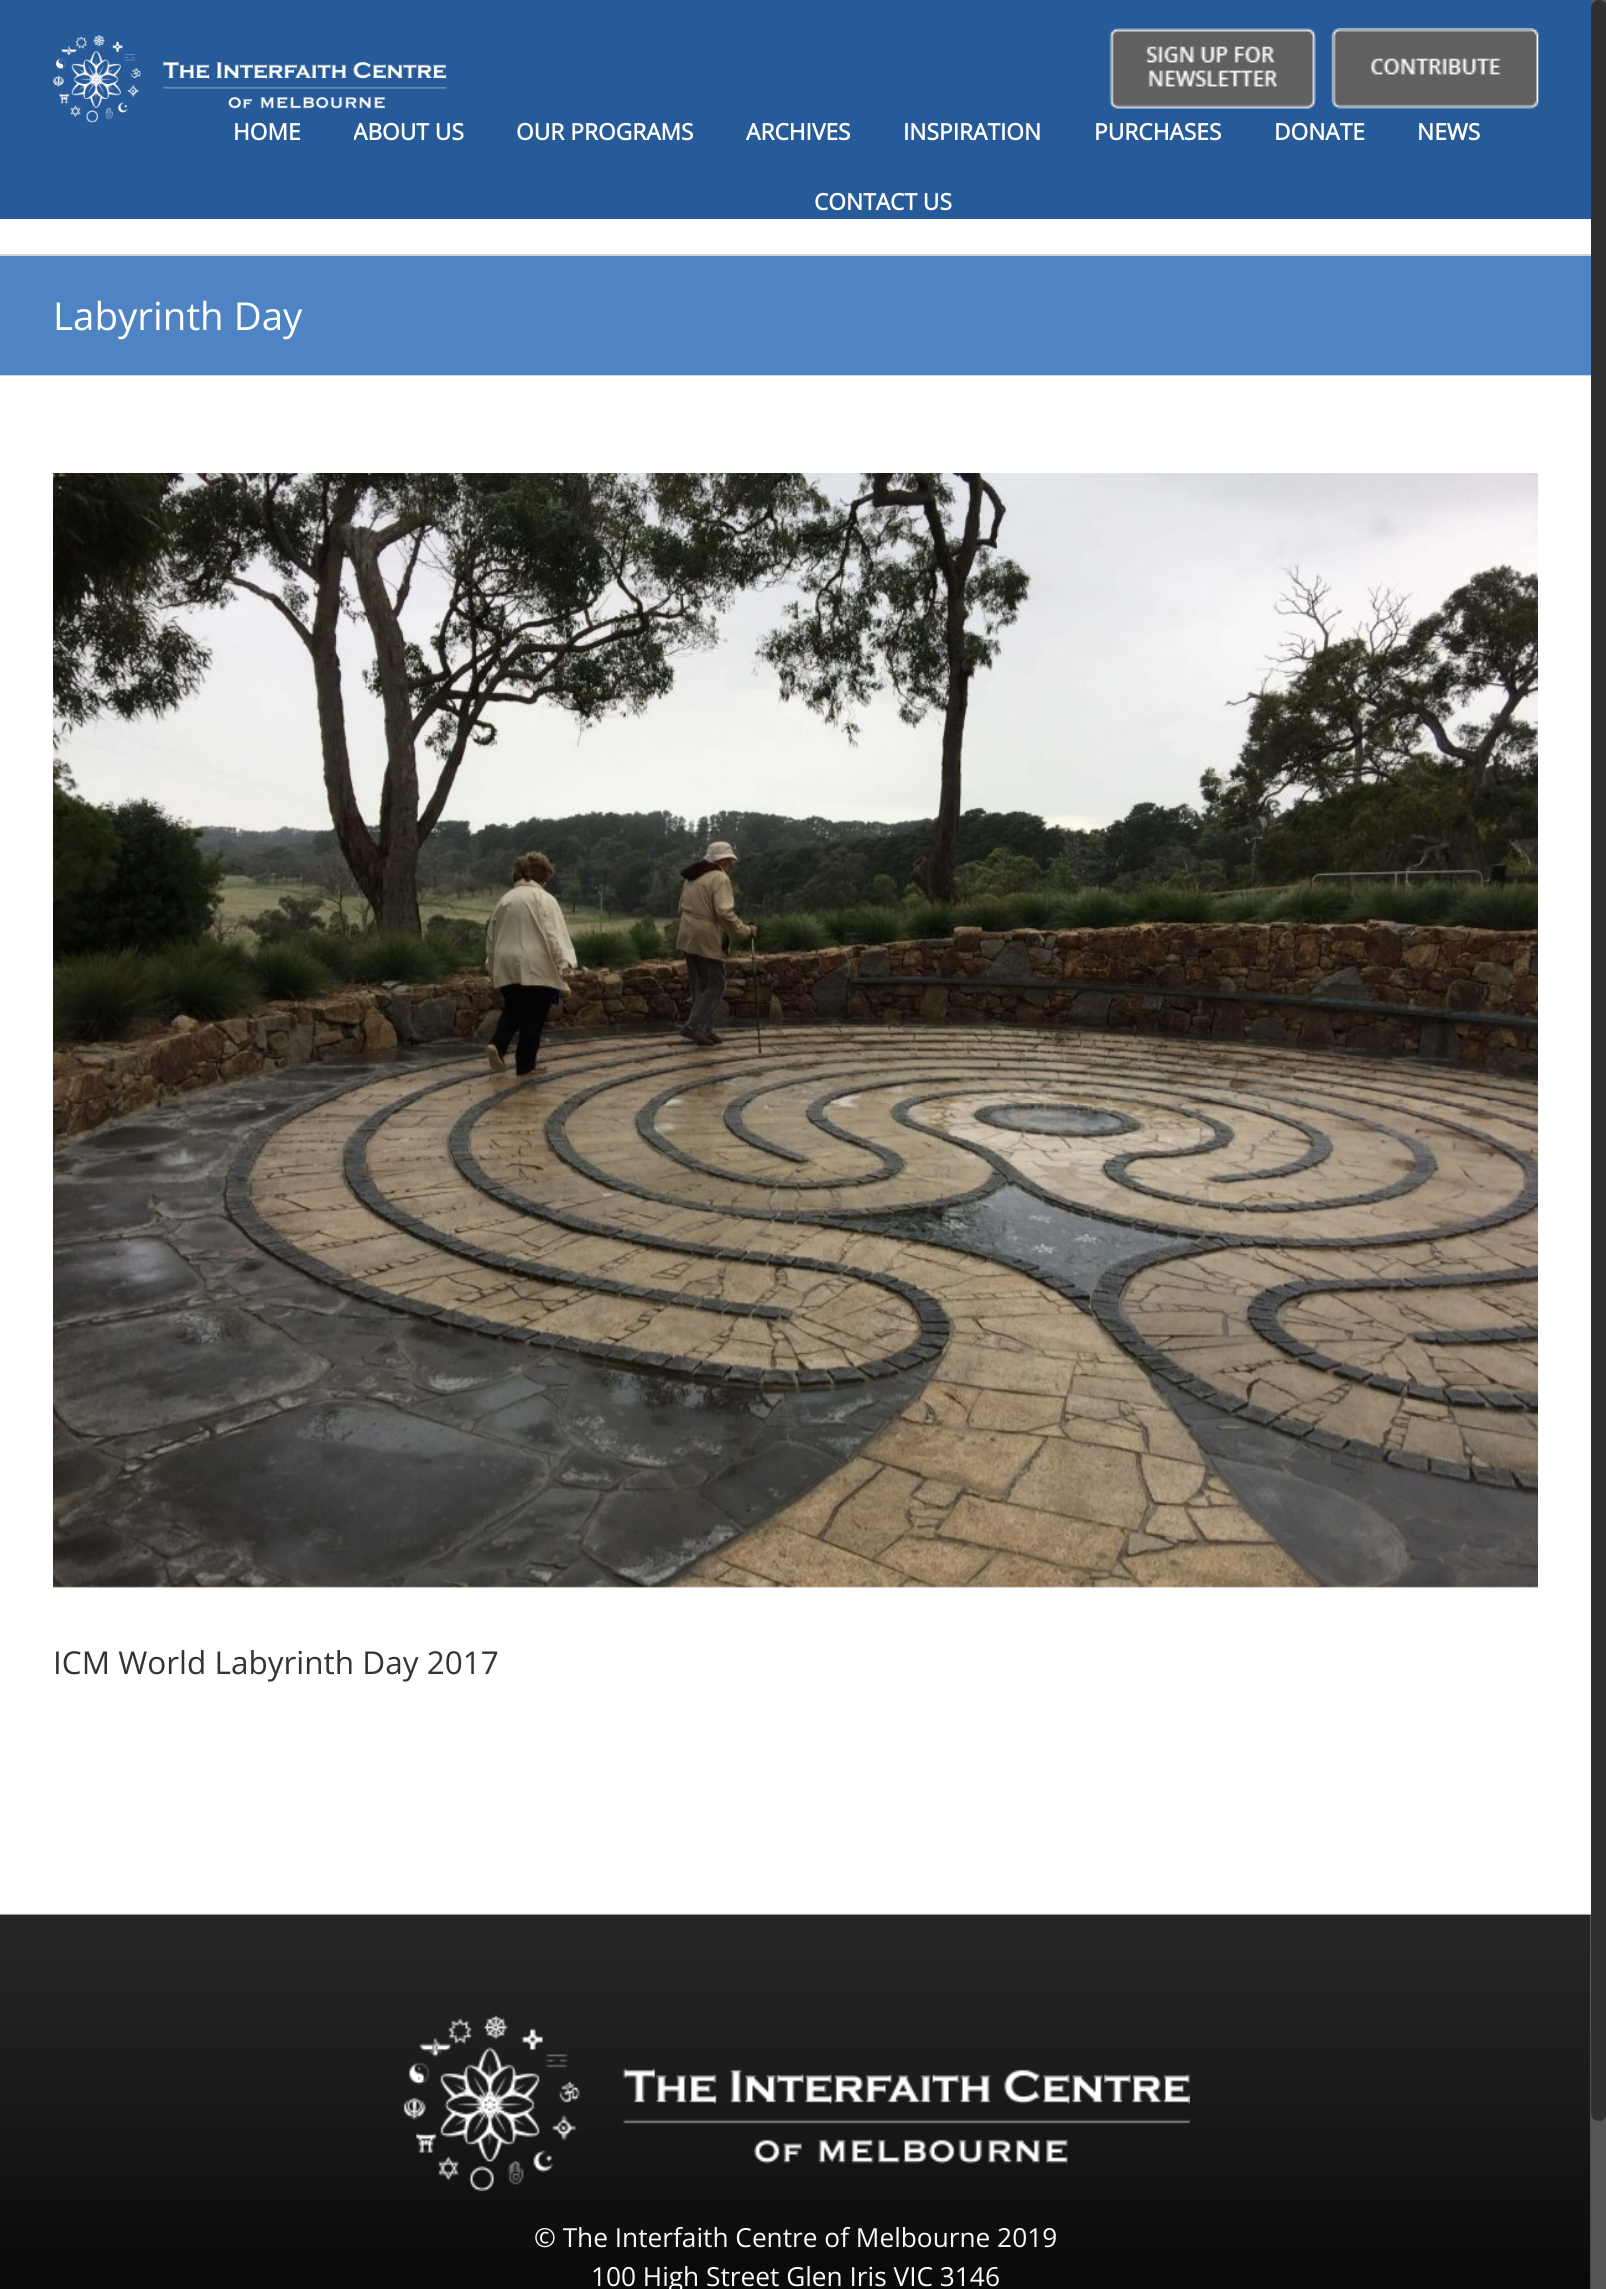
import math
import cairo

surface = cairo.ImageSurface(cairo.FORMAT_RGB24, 1606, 2289)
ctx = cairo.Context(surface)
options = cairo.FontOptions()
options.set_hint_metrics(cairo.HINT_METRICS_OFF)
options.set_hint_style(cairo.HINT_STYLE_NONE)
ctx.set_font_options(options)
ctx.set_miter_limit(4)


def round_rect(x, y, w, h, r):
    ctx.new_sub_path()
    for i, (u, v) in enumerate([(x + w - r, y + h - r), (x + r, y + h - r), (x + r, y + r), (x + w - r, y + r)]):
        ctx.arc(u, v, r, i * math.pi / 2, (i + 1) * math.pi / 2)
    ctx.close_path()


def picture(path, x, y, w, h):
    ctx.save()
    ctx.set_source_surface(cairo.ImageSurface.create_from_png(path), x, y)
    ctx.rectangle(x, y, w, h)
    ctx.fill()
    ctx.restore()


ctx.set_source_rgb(1, 1, 1)
ctx.paint()
ctx.set_source_rgb(0.149, 0.353, 0.596)
ctx.rectangle(0, 0, 1591, 219)
ctx.fill()
picture("img1.png", 1109, 28, 207, 81)
picture("img2.png", 1331, 28, 208, 81)
picture("img3.png", 53, 35, 394, 88)
ctx.select_font_face("Open Sans", cairo.FONT_SLANT_NORMAL, cairo.FONT_WEIGHT_BOLD)
ctx.set_font_size(22.75)
ctx.set_source_rgb(1, 1, 1)
ctx.move_to(233, 140)
ctx.show_text("HOME")
ctx.save()
ctx.rectangle(354, 96, 162, 70)
ctx.clip()
ctx.move_to(353, 140)
ctx.show_text("ABOUT US")
ctx.restore()
ctx.move_to(516, 140)
ctx.show_text("OUR PROGRAMS")
ctx.move_to(746, 140)
ctx.show_text("ARCHIVES")
ctx.move_to(903, 140)
ctx.show_text("INSPIRATION")
ctx.move_to(1094, 140)
ctx.show_text("PURCHASES")
ctx.move_to(1274, 140)
ctx.show_text("DONATE")
ctx.move_to(1417, 140)
ctx.show_text("NEWS")
ctx.move_to(814, 210)
ctx.show_text("CONTACT US")
ctx.set_source_rgb(0.306, 0.518, 0.769)
ctx.rectangle(0, 256, 1591, 119)
ctx.fill()
ctx.set_source_rgb(0.824, 0.827, 0.831)
ctx.rectangle(0, 254, 1591, 2)
ctx.fill()
ctx.rectangle(0, 375, 1591, 1)
ctx.fill()
ctx.select_font_face("Open Sans")
ctx.set_font_size(38.5)
ctx.set_source_rgb(1, 1, 1)
ctx.move_to(53, 330)
ctx.show_text("Labyrinth Day")
picture("img4.png", 53, 473, 1485, 1115)
ctx.set_font_size(31.5)
ctx.set_source_rgb(0.2, 0.2, 0.2)
ctx.move_to(53, 1674)
ctx.show_text("ICM World Labyrinth Day 2017")
picture("img5.png", 0, 1913, 1591, 376)
picture("img6.png", 403, 2015, 787, 176)
ctx.set_font_size(26.25)
ctx.set_source_rgb(1, 0.976, 0.976)
ctx.move_to(534, 2247)
ctx.show_text("© The Interfaith Centre of Melbourne 2019")
ctx.move_to(591, 2286)
ctx.show_text("100 High Street Glen Iris VIC 3146")
ctx.set_source_rgb(0.333, 0.333, 0.333)
ctx.rectangle(1591, 0, 15, 2289)
ctx.fill()
ctx.set_source_rgb(0.188, 0.188, 0.188)
round_rect(1591, 0, 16, 2121, 8)
ctx.fill()
surface.write_to_png("page.png")
